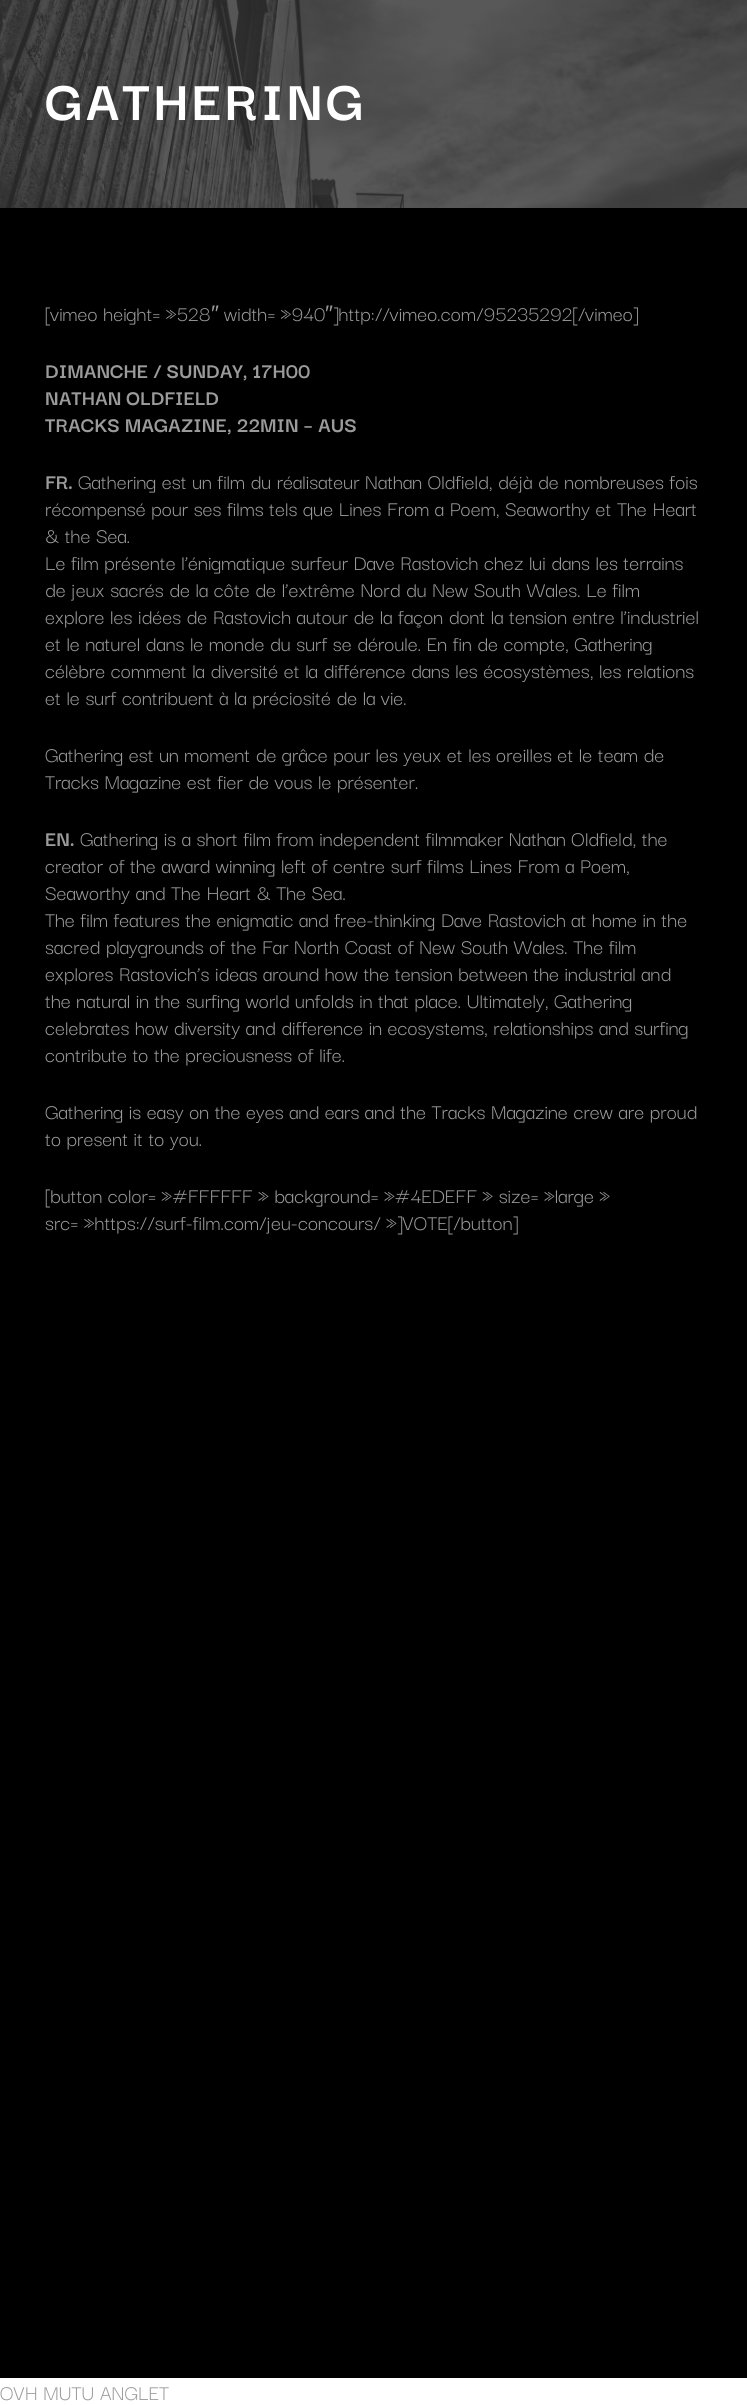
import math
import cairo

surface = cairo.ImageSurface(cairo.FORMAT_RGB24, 747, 2405)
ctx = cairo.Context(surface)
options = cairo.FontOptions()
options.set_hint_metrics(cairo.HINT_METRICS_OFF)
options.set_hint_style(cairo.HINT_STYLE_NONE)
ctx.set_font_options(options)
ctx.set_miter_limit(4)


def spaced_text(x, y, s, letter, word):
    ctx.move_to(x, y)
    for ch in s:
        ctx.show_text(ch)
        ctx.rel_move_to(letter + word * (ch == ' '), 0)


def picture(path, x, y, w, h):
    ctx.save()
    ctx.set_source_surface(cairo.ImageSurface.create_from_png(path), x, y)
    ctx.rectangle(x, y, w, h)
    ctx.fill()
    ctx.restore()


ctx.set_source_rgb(1, 1, 1)
ctx.paint()
ctx.set_source_rgb(0, 0, 0)
ctx.rectangle(0, 208, 747, 2170)
ctx.fill()
picture("img1.png", 0, 0, 747, 208)
ctx.select_font_face("Darker Grotesque", cairo.FONT_SLANT_NORMAL, cairo.FONT_WEIGHT_BOLD)
ctx.set_font_size(60)
ctx.set_source_rgb(1, 1, 1)
spaced_text(45, 120, "GATHERING", 3, 0)
ctx.select_font_face("Darker Grotesque")
ctx.set_font_size(22.5)
ctx.set_source_rgb(0.608, 0.608, 0.608)
ctx.move_to(45, 321)
ctx.show_text("[vimeo height= »528")
ctx.select_font_face("Liberation Sans")
ctx.move_to(211, 321)
ctx.show_text("″")
ctx.select_font_face("Darker Grotesque")
ctx.move_to(224, 321)
ctx.show_text("width= »940")
ctx.select_font_face("Liberation Sans")
ctx.move_to(325, 321)
ctx.show_text("″")
ctx.select_font_face("Darker Grotesque")
ctx.move_to(333, 321)
ctx.show_text("]http://vimeo.com/95235292[/vimeo]")
ctx.select_font_face("Darker Grotesque", cairo.FONT_SLANT_NORMAL, cairo.FONT_WEIGHT_BOLD)
ctx.move_to(45, 378)
ctx.show_text("DIMANCHE / SUNDAY, 17H00")
ctx.move_to(45, 405)
ctx.show_text("NATHAN OLDFIELD")
ctx.move_to(45, 432)
ctx.show_text("TRACKS MAGAZINE, 22MIN – AUS")
ctx.move_to(45, 489)
ctx.show_text("FR.")
ctx.select_font_face("Darker Grotesque")
ctx.move_to(78, 489)
ctx.show_text("Gathering est un film du réalisateur Nathan Oldfield, déjà de nombreuses fois")
ctx.move_to(45, 516)
ctx.show_text("récompensé pour ses films tels que Lines From a Poem, Seaworthy et The Heart")
ctx.move_to(45, 543)
ctx.show_text("& the Sea.")
ctx.move_to(45, 570)
ctx.show_text("Le film présente l’énigmatique surfeur Dave Rastovich chez lui dans les terrains")
ctx.move_to(45, 597)
ctx.show_text("de jeux sacrés de la côte de l’extrême Nord du New South Wales. Le film")
ctx.move_to(45, 624)
ctx.show_text("explore les idées de Rastovich autour de la façon dont la tension entre l’industriel")
ctx.move_to(45, 651)
ctx.show_text("et le naturel dans le monde du surf se déroule. En fin de compte, Gathering")
ctx.move_to(45, 678)
ctx.show_text("célèbre comment la diversité et la différence dans les écosystèmes, les relations")
ctx.move_to(45, 705)
ctx.show_text("et le surf contribuent à la préciosité de la vie.")
ctx.move_to(45, 762)
ctx.show_text("Gathering est un moment de grâce pour les yeux et les oreilles et le team de")
ctx.move_to(45, 789)
ctx.show_text("Tracks Magazine est fier de vous le présenter.")
ctx.select_font_face("Darker Grotesque", cairo.FONT_SLANT_NORMAL, cairo.FONT_WEIGHT_BOLD)
ctx.move_to(45, 846)
ctx.show_text("EN.")
ctx.select_font_face("Darker Grotesque")
ctx.move_to(80, 846)
ctx.show_text("Gathering is a short film from independent filmmaker Nathan Oldfield, the")
ctx.move_to(45, 873)
ctx.show_text("creator of the award winning left of centre surf films Lines From a Poem,")
ctx.move_to(45, 900)
ctx.show_text("Seaworthy and The Heart & The Sea.")
ctx.move_to(45, 927)
ctx.show_text("The film features the enigmatic and free-thinking Dave Rastovich at home in the")
ctx.move_to(45, 954)
ctx.show_text("sacred playgrounds of the Far North Coast of New South Wales. The film")
ctx.move_to(45, 981)
ctx.show_text("explores Rastovich’s ideas around how the tension between the industrial and")
ctx.move_to(45, 1008)
ctx.show_text("the natural in the surfing world unfolds in that place. Ultimately, Gathering")
ctx.move_to(45, 1035)
ctx.show_text("celebrates how diversity and difference in ecosystems, relationships and surfing")
ctx.move_to(45, 1062)
ctx.show_text("contribute to the preciousness of life.")
ctx.move_to(45, 1119)
ctx.show_text("Gathering is easy on the eyes and ears and the Tracks Magazine crew are proud")
ctx.move_to(45, 1146)
ctx.show_text("to present it to you.")
ctx.move_to(45, 1203)
ctx.show_text("[button color= »#FFFFFF » background= »#4EDEFF » size= »large »")
ctx.move_to(45, 1230)
ctx.show_text("src= »https://surf-film.com/jeu-concours/ »]VOTE[/button]")
ctx.move_to(0, 2400)
ctx.show_text("OVH MUTU ANGLET")
surface.write_to_png("page.png")
